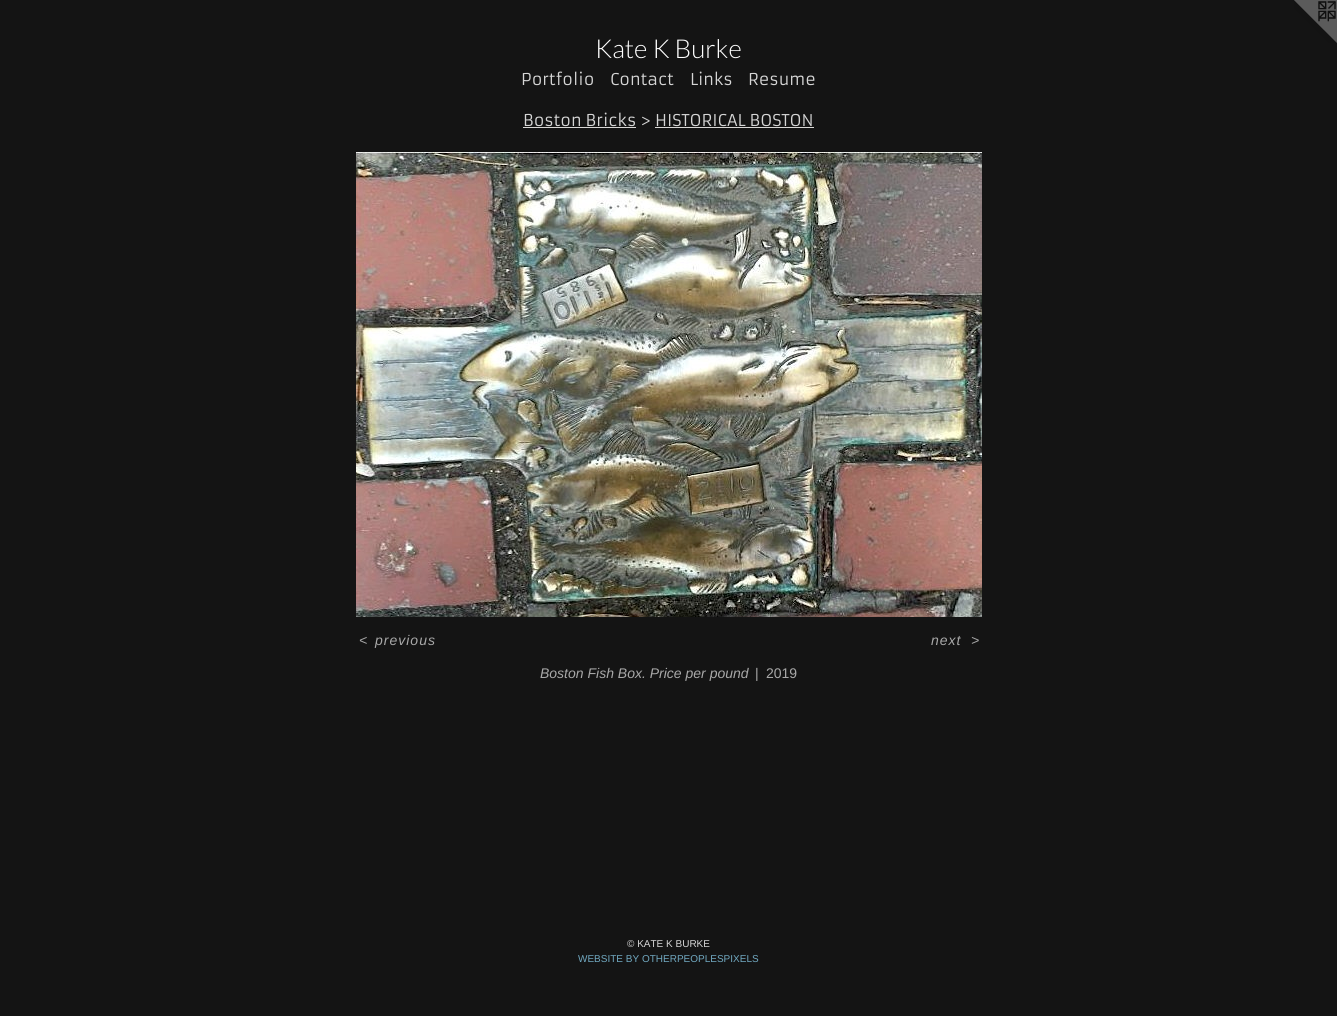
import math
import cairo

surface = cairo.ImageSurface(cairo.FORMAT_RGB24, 1337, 1016)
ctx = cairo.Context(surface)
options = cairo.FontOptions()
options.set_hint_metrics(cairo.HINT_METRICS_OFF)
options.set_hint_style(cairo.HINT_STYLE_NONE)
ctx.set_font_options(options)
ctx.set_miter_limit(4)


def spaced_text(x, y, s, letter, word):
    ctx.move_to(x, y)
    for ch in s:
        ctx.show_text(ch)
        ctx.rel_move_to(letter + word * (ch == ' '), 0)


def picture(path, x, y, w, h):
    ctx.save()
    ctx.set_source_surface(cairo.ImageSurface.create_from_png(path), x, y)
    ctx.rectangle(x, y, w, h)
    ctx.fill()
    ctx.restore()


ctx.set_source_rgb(0.082, 0.082, 0.082)
ctx.paint()
picture("img1.png", 1294, 0, 43, 43)
ctx.select_font_face("Lato Light")
ctx.set_font_size(26)
ctx.set_source_rgb(1, 1, 1)
ctx.move_to(595, 58)
ctx.show_text("Kate K Burke")
ctx.select_font_face("Armata")
ctx.set_font_size(16)
ctx.set_source_rgb(0.839, 0.839, 0.839)
ctx.move_to(521, 85)
ctx.show_text("Portfolio")
ctx.move_to(610, 85)
ctx.show_text("Contact")
ctx.move_to(690, 85)
ctx.show_text("Links")
ctx.move_to(748, 85)
ctx.show_text("Resume")
ctx.move_to(523, 126)
ctx.show_text("Boston Bricks > HISTORICAL BOSTON")
ctx.set_source_rgb(0.847, 0.843, 0.835)
ctx.rectangle(523, 127, 113, 1)
ctx.fill()
ctx.rectangle(655, 127, 159, 1)
ctx.fill()
picture("img2.png", 356, 152, 626, 465)
ctx.select_font_face("Liberation Sans", cairo.FONT_SLANT_ITALIC)
ctx.set_font_size(14)
ctx.set_source_rgb(0.659, 0.659, 0.659)
spaced_text(359, 645, "<", 1, 0)
spaced_text(375, 645, "previous", 1, 0)
spaced_text(931, 645, "next", 1, 0)
spaced_text(971, 645, ">", 1, 0)
ctx.move_to(540, 678)
ctx.show_text("Boston Fish Box. Price per pound")
ctx.select_font_face("Liberation Sans")
ctx.move_to(755, 678)
ctx.show_text("|")
ctx.move_to(766, 678)
ctx.show_text("2019")
ctx.set_font_size(10)
ctx.set_source_rgb(0.839, 0.839, 0.839)
ctx.move_to(627, 947)
ctx.show_text("© KATE K BURKE")
ctx.set_source_rgb(0.439, 0.659, 0.753)
ctx.move_to(578, 962)
ctx.show_text("WEBSITE BY OTHERPEOPLESPIXELS")
surface.write_to_png("page.png")
